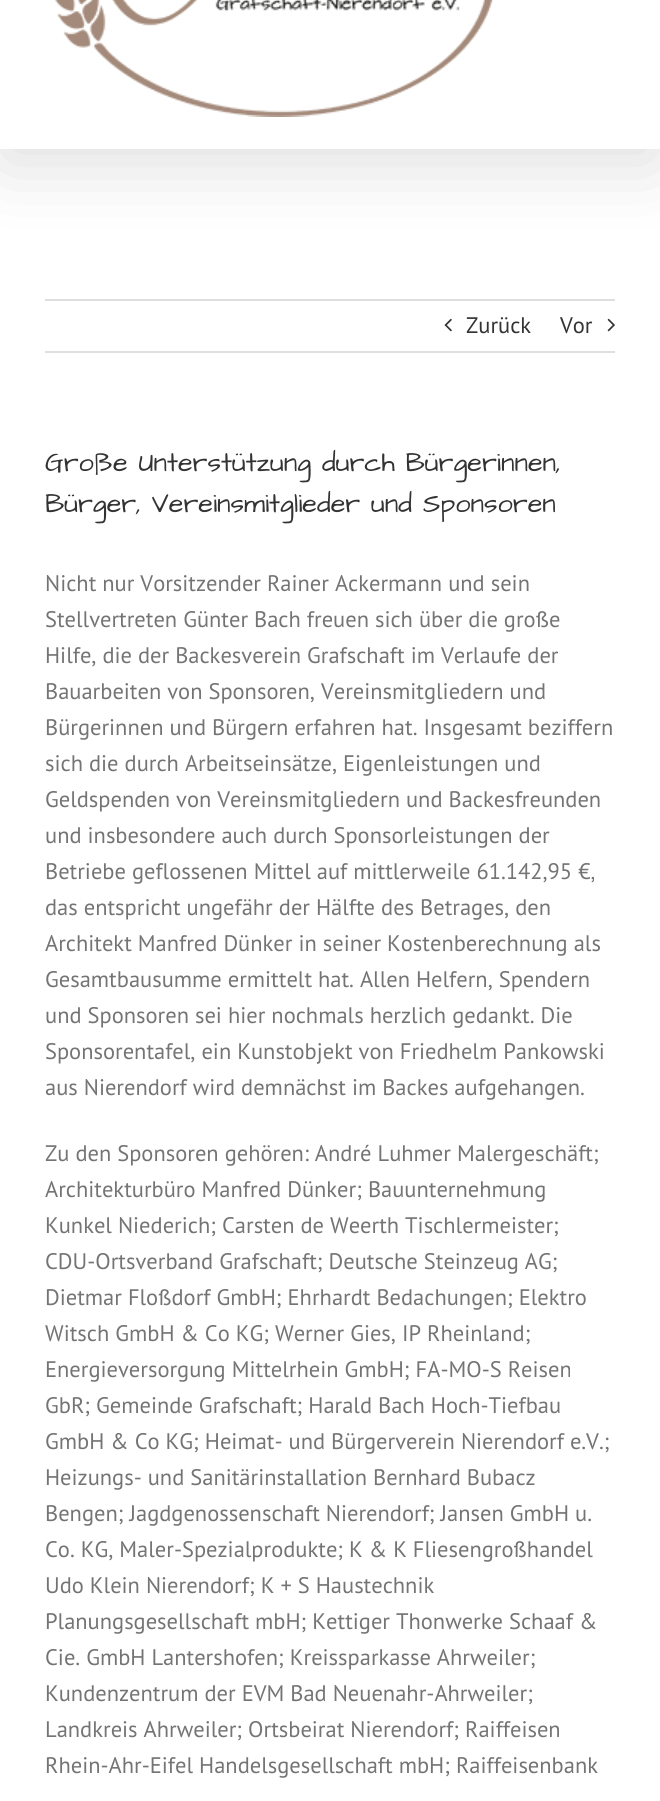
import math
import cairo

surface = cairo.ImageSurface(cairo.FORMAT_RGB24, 660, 1801)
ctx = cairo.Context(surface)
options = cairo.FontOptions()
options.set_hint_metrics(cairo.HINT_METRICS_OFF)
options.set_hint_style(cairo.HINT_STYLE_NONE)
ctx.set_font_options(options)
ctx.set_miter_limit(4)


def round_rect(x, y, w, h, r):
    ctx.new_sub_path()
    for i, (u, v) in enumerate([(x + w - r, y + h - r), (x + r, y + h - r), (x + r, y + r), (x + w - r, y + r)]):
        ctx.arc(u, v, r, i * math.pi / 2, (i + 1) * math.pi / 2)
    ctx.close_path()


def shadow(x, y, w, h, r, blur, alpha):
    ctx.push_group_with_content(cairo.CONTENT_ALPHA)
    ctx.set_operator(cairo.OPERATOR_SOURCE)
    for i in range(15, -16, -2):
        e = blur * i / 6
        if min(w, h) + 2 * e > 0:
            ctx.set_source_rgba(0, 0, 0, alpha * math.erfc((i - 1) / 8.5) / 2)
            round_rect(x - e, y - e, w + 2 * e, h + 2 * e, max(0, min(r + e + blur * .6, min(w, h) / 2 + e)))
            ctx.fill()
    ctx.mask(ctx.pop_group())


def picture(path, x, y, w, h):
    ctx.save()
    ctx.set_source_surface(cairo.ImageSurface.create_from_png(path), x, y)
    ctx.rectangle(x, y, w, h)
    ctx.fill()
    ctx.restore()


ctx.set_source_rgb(1, 1, 1)
ctx.paint()
ctx.set_source_rgb(0, 0, 0)
shadow(3, -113, 654, 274, 0, 37.5, 0.14)
ctx.set_source_rgb(1, 1, 1)
ctx.rectangle(0, 0, 660, 149)
ctx.fill()
picture("img1.png", 55, 0, 438, 117)
ctx.set_source_rgb(0.878, 0.871, 0.871)
ctx.rectangle(45, 299, 570, 2)
ctx.fill()
ctx.rectangle(45, 351, 570, 2)
ctx.fill()
picture("img2.png", 444, 318, 8, 14)
ctx.select_font_face("PT Sans")
ctx.set_font_size(22.5)
ctx.set_source_rgb(0.2, 0.2, 0.2)
ctx.move_to(466, 333)
ctx.show_text("Zurück")
ctx.move_to(560, 333)
ctx.show_text("Vor")
picture("img3.png", 607, 318, 8, 14)
ctx.select_font_face("Architects Daughter")
ctx.set_font_size(27)
ctx.move_to(45, 471)
ctx.show_text("Große Unterstützung durch Bürgerinnen,")
ctx.move_to(45, 512)
ctx.show_text("Bürger, Vereinsmitglieder und Sponsoren")
ctx.select_font_face("PT Sans")
ctx.set_font_size(22.5)
ctx.set_source_rgb(0.455, 0.455, 0.455)
ctx.move_to(45, 591)
ctx.show_text("Nicht nur Vorsitzender Rainer Ackermann und sein")
ctx.move_to(45, 627)
ctx.show_text("Stellvertreten Günter Bach freuen sich über die große")
ctx.move_to(45, 663)
ctx.show_text("Hilfe, die der Backesverein Grafschaft im Verlaufe der")
ctx.move_to(45, 699)
ctx.show_text("Bauarbeiten von Sponsoren, Vereinsmitgliedern und")
ctx.move_to(45, 735)
ctx.show_text("Bürgerinnen und Bürgern erfahren hat. Insgesamt beziffern")
ctx.move_to(45, 771)
ctx.show_text("sich die durch Arbeitseinsätze, Eigenleistungen und")
ctx.move_to(45, 807)
ctx.show_text("Geldspenden von Vereinsmitgliedern und Backesfreunden")
ctx.move_to(45, 843)
ctx.show_text("und insbesondere auch durch Sponsorleistungen der")
ctx.move_to(45, 879)
ctx.show_text("Betriebe geflossenen Mittel auf mittlerweile 61.142,95 €,")
ctx.move_to(45, 915)
ctx.show_text("das entspricht ungefähr der Hälfte des Betrages, den")
ctx.move_to(45, 951)
ctx.show_text("Architekt Manfred Dünker in seiner Kostenberechnung als")
ctx.move_to(45, 987)
ctx.show_text("Gesamtbausumme ermittelt hat. Allen Helfern, Spendern")
ctx.move_to(45, 1023)
ctx.show_text("und Sponsoren sei hier nochmals herzlich gedankt. Die")
ctx.move_to(45, 1059)
ctx.show_text("Sponsorentafel, ein Kunstobjekt von Friedhelm Pankowski")
ctx.move_to(45, 1095)
ctx.show_text("aus Nierendorf wird demnächst im Backes aufgehangen.")
ctx.move_to(45, 1161)
ctx.show_text("Zu den Sponsoren gehören: André Luhmer Malergeschäft;")
ctx.move_to(45, 1197)
ctx.show_text("Architekturbüro Manfred Dünker; Bauunternehmung")
ctx.move_to(45, 1233)
ctx.show_text("Kunkel Niederich; Carsten de Weerth Tischlermeister;")
ctx.move_to(45, 1269)
ctx.show_text("CDU-Ortsverband Grafschaft; Deutsche Steinzeug AG;")
ctx.move_to(45, 1305)
ctx.show_text("Dietmar Floßdorf GmbH; Ehrhardt Bedachungen; Elektro")
ctx.move_to(45, 1341)
ctx.show_text("Witsch GmbH & Co KG; Werner Gies, IP Rheinland;")
ctx.move_to(45, 1377)
ctx.show_text("Energieversorgung Mittelrhein GmbH; FA-MO-S Reisen")
ctx.move_to(45, 1413)
ctx.show_text("GbR; Gemeinde Grafschaft; Harald Bach Hoch-Tiefbau")
ctx.move_to(45, 1449)
ctx.show_text("GmbH & Co KG; Heimat- und Bürgerverein Nierendorf e.V.;")
ctx.move_to(45, 1485)
ctx.show_text("Heizungs- und Sanitärinstallation Bernhard Bubacz")
ctx.move_to(45, 1521)
ctx.show_text("Bengen; Jagdgenossenschaft Nierendorf; Jansen GmbH u.")
ctx.move_to(45, 1557)
ctx.show_text("Co. KG, Maler-Spezialprodukte; K & K Fliesengroßhandel")
ctx.move_to(45, 1593)
ctx.show_text("Udo Klein Nierendorf; K + S Haustechnik")
ctx.move_to(45, 1629)
ctx.show_text("Planungsgesellschaft mbH; Kettiger Thonwerke Schaaf &")
ctx.move_to(45, 1665)
ctx.show_text("Cie. GmbH Lantershofen; Kreissparkasse Ahrweiler;")
ctx.move_to(45, 1701)
ctx.show_text("Kundenzentrum der EVM Bad Neuenahr-Ahrweiler;")
ctx.move_to(45, 1737)
ctx.show_text("Landkreis Ahrweiler; Ortsbeirat Nierendorf; Raiffeisen")
ctx.move_to(45, 1773)
ctx.show_text("Rhein-Ahr-Eifel Handelsgesellschaft mbH; Raiffeisenbank")
surface.write_to_png("page.png")
